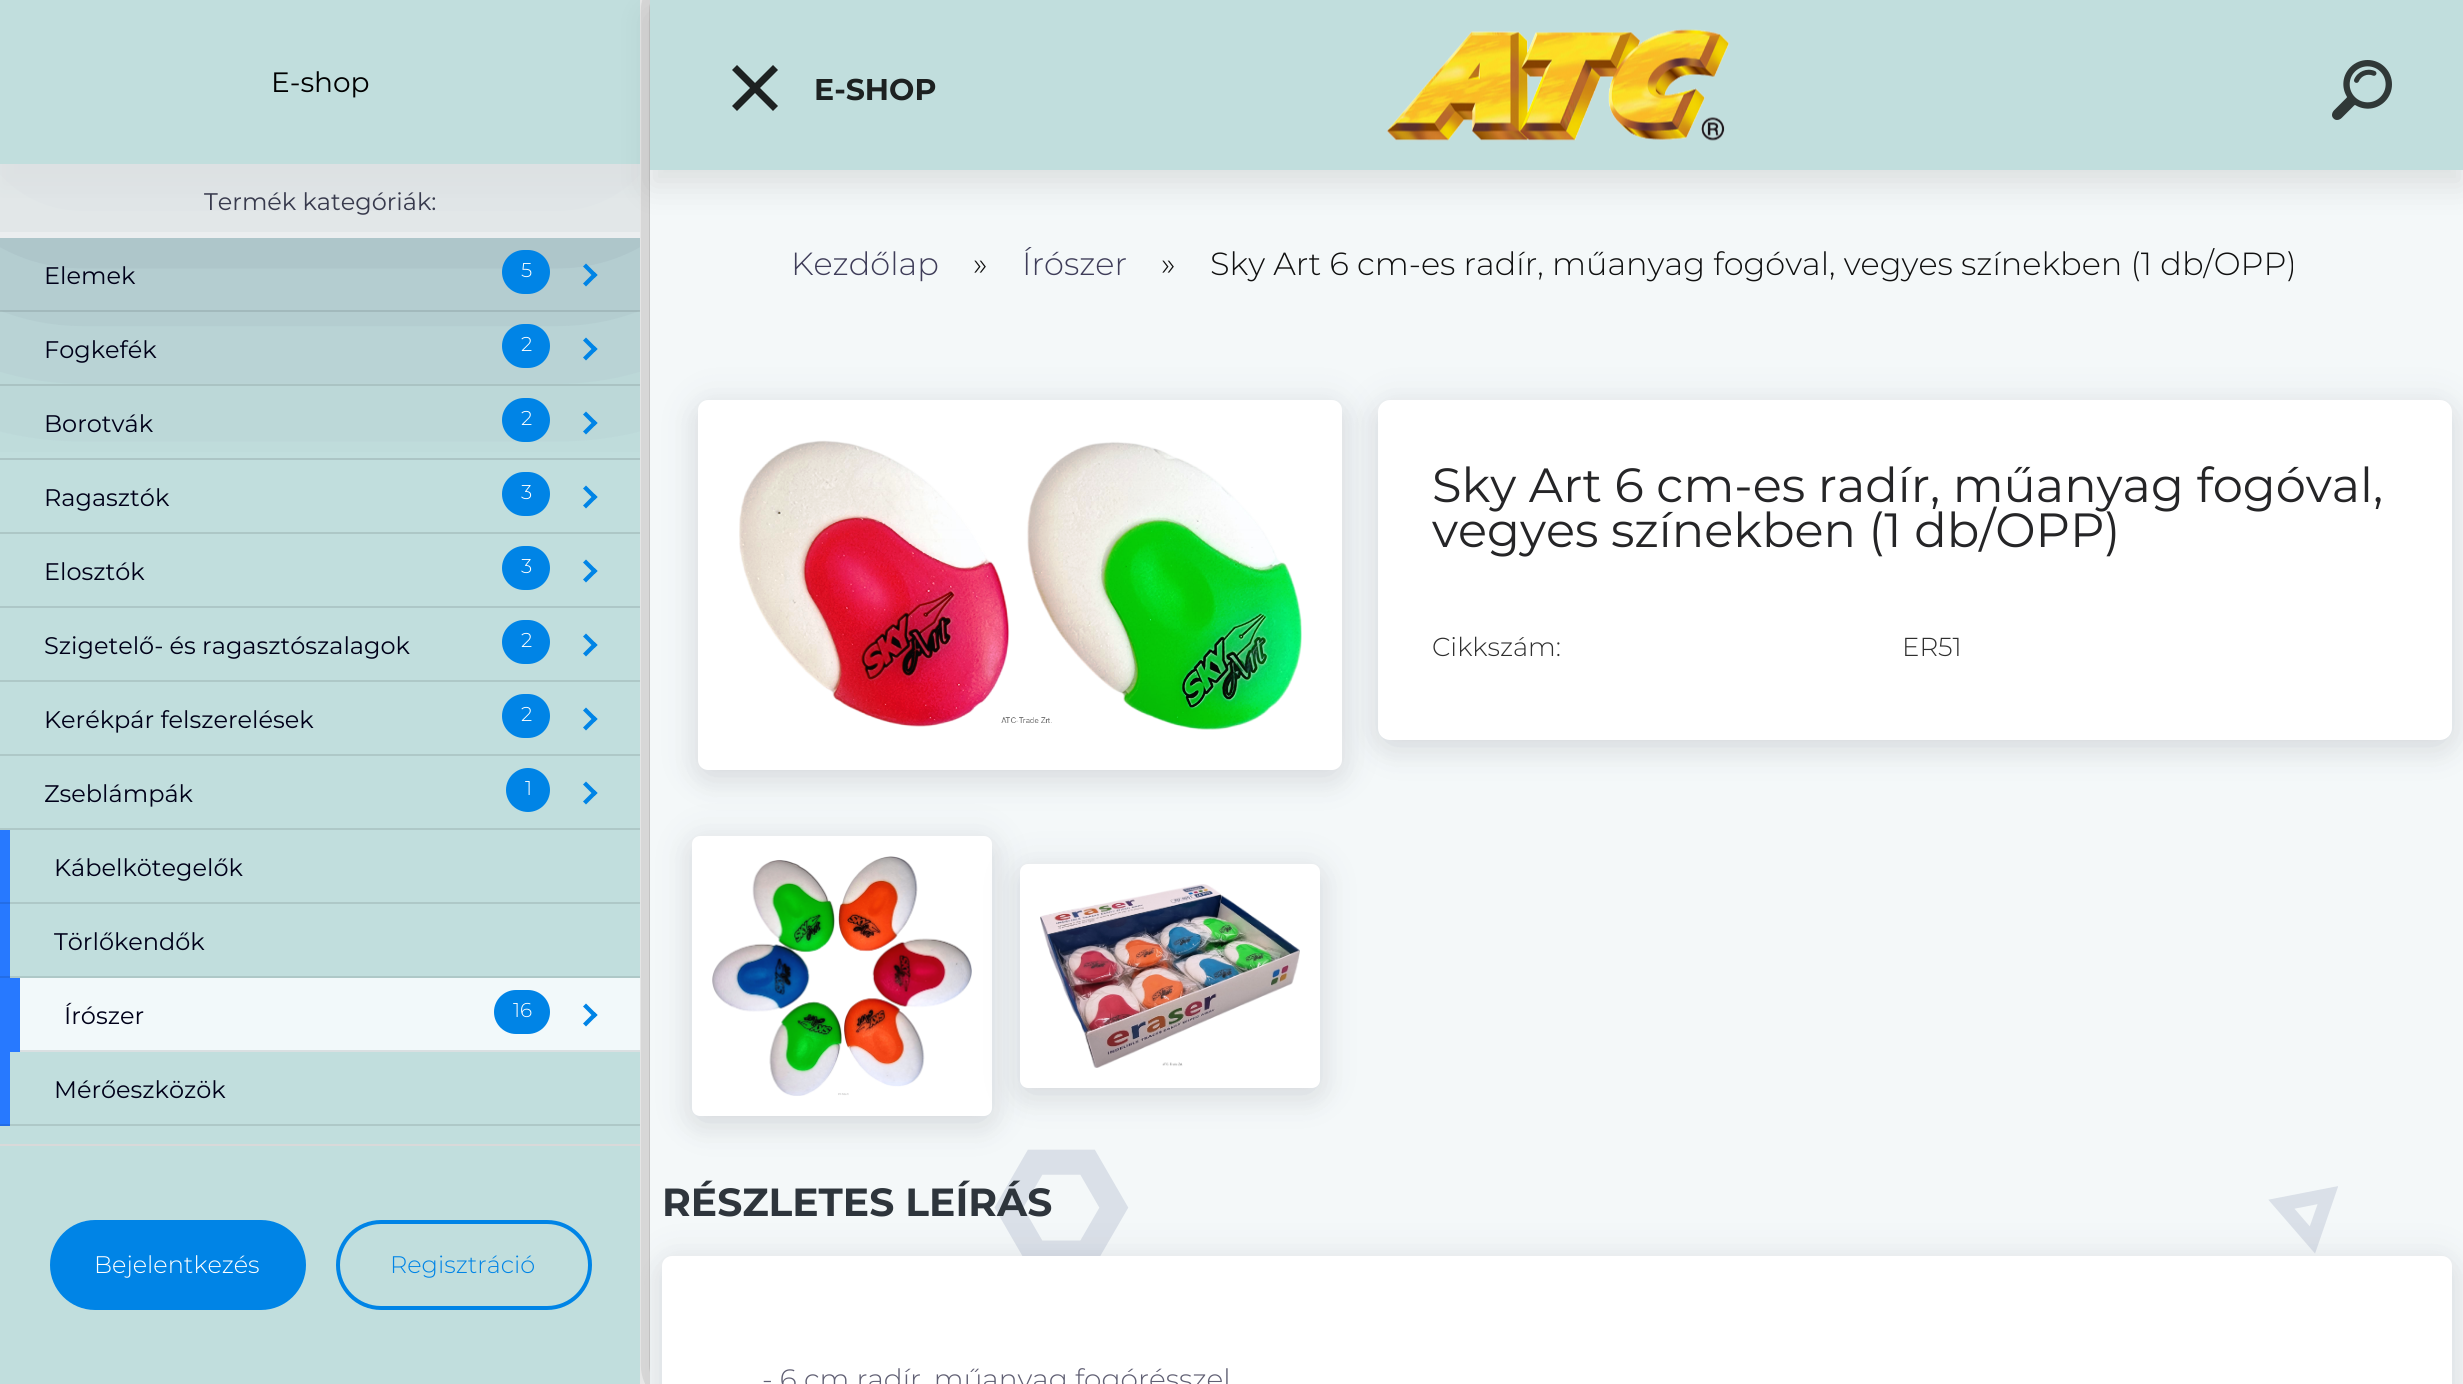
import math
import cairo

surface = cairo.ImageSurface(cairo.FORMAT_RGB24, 2463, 1384)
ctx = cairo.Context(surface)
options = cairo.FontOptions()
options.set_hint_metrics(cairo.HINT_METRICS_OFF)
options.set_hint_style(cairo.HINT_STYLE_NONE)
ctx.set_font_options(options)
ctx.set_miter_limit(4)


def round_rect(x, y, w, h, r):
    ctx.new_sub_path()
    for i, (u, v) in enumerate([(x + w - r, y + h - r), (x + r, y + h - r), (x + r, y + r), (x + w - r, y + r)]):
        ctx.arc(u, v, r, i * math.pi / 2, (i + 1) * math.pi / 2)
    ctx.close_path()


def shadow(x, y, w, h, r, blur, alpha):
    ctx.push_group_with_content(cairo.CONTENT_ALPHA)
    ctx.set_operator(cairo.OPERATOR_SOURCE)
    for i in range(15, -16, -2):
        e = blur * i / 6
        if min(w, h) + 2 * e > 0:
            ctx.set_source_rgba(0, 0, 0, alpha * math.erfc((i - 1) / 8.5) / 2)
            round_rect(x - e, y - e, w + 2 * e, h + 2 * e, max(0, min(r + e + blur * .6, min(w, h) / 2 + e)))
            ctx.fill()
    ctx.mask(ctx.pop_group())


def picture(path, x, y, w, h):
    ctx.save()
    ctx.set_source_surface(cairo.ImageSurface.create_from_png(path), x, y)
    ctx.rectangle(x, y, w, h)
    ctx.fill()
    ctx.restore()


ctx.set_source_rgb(1, 1, 1)
ctx.paint()
ctx.set_source_rgb(0, 0, 0)
shadow(670, -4, 640, 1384, 0, 25, 1)
ctx.set_source_rgb(0.757, 0.871, 0.867)
ctx.rectangle(0, 0, 640, 1144)
ctx.fill()
ctx.save()
ctx.rectangle(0, 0, 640, 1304)
ctx.clip()
ctx.rectangle(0, 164, 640, 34)
ctx.clip()
ctx.set_source_rgb(0, 0, 0)
shadow(0, 24, 640, 164, 0, 12, 0.1)
ctx.restore()
ctx.save()
ctx.rectangle(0, 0, 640, 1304)
ctx.clip()
ctx.rectangle(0, 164, 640, 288)
ctx.clip()
ctx.set_source_rgb(0.239, 0.208, 0.365)
shadow(0, 18, 640, 164, 0, 173, 0.4)
ctx.restore()
ctx.select_font_face("Montserrat")
ctx.set_font_size(28)
ctx.set_source_rgb(0, 0, 0)
ctx.move_to(271, 92)
ctx.show_text("E-shop")
ctx.set_source_rgba(0, 0, 0, 0.05)
ctx.rectangle(0, 164, 640, 68)
ctx.fill()
ctx.set_source_rgba(0.961, 0.961, 0.961, 0.75)
ctx.rectangle(0, 164, 640, 68)
ctx.fill()
ctx.set_source_rgb(0.918, 0.933, 0.937)
ctx.rectangle(0, 232, 640, 6)
ctx.fill()
ctx.set_font_size(24)
ctx.set_source_rgb(0.22, 0.227, 0.302)
ctx.move_to(204, 210)
ctx.show_text("Termék kategóriák:")
ctx.set_source_rgb(0, 0, 0.098)
ctx.move_to(44, 284)
ctx.show_text("Elemek")
ctx.set_source_rgb(0, 0.518, 0.902)
round_rect(502, 250, 48, 44, 22)
ctx.fill()
ctx.select_font_face("Montserrat Light")
ctx.set_font_size(20)
ctx.set_source_rgb(1, 1, 1)
ctx.move_to(521, 277)
ctx.show_text("5")
ctx.set_source_rgb(0, 0.518, 0.902)
ctx.new_path()
ctx.move_to(597.5, 275)
ctx.line_to(586, 286.5)
ctx.line_to(583, 283.5)
ctx.line_to(594.5, 272)
ctx.close_path()
ctx.fill()
ctx.new_path()
ctx.move_to(597.5, 275)
ctx.line_to(594.5, 278)
ctx.line_to(583, 266.5)
ctx.line_to(586, 263.5)
ctx.close_path()
ctx.fill()
ctx.set_source_rgba(0, 0, 0, 0.1)
ctx.rectangle(0, 310, 640, 2)
ctx.fill()
ctx.select_font_face("Montserrat")
ctx.set_font_size(24)
ctx.set_source_rgb(0, 0, 0.098)
ctx.move_to(44, 358)
ctx.show_text("Fogkefék")
ctx.set_source_rgb(0, 0.518, 0.902)
round_rect(502, 324, 48, 44, 22)
ctx.fill()
ctx.select_font_face("Montserrat Light")
ctx.set_font_size(20)
ctx.set_source_rgb(1, 1, 1)
ctx.move_to(521, 351)
ctx.show_text("2")
ctx.set_source_rgb(0, 0.518, 0.902)
ctx.new_path()
ctx.move_to(597.5, 349)
ctx.line_to(586, 360.5)
ctx.line_to(583, 357.5)
ctx.line_to(594.5, 346)
ctx.close_path()
ctx.fill()
ctx.new_path()
ctx.move_to(597.5, 349)
ctx.line_to(594.5, 352)
ctx.line_to(583, 340.5)
ctx.line_to(586, 337.5)
ctx.close_path()
ctx.fill()
ctx.set_source_rgba(0, 0, 0, 0.1)
ctx.rectangle(0, 384, 640, 2)
ctx.fill()
ctx.select_font_face("Montserrat")
ctx.set_font_size(24)
ctx.set_source_rgb(0, 0, 0.098)
ctx.move_to(44, 432)
ctx.show_text("Borotvák")
ctx.set_source_rgb(0, 0.518, 0.902)
round_rect(502, 398, 48, 44, 22)
ctx.fill()
ctx.select_font_face("Montserrat Light")
ctx.set_font_size(20)
ctx.set_source_rgb(1, 1, 1)
ctx.move_to(521, 425)
ctx.show_text("2")
ctx.set_source_rgb(0, 0.518, 0.902)
ctx.new_path()
ctx.move_to(597.5, 423)
ctx.line_to(586, 434.5)
ctx.line_to(583, 431.5)
ctx.line_to(594.5, 420)
ctx.close_path()
ctx.fill()
ctx.new_path()
ctx.move_to(597.5, 423)
ctx.line_to(594.5, 426)
ctx.line_to(583, 414.5)
ctx.line_to(586, 411.5)
ctx.close_path()
ctx.fill()
ctx.set_source_rgb(0.675, 0.773, 0.773)
ctx.rectangle(0, 458, 640, 2)
ctx.fill()
ctx.select_font_face("Montserrat")
ctx.set_font_size(24)
ctx.set_source_rgb(0, 0, 0.098)
ctx.move_to(44, 506)
ctx.show_text("Ragasztók")
ctx.set_source_rgb(0, 0.518, 0.902)
round_rect(502, 472, 48, 44, 22)
ctx.fill()
ctx.select_font_face("Montserrat Light")
ctx.set_font_size(20)
ctx.set_source_rgb(1, 1, 1)
ctx.move_to(521, 499)
ctx.show_text("3")
ctx.set_source_rgb(0, 0.518, 0.902)
ctx.new_path()
ctx.move_to(597.5, 497)
ctx.line_to(586, 508.5)
ctx.line_to(583, 505.5)
ctx.line_to(594.5, 494)
ctx.close_path()
ctx.fill()
ctx.new_path()
ctx.move_to(597.5, 497)
ctx.line_to(594.5, 500)
ctx.line_to(583, 488.5)
ctx.line_to(586, 485.5)
ctx.close_path()
ctx.fill()
ctx.set_source_rgb(0.678, 0.78, 0.776)
ctx.rectangle(0, 532, 640, 2)
ctx.fill()
ctx.select_font_face("Montserrat")
ctx.set_font_size(24)
ctx.set_source_rgb(0, 0, 0.098)
ctx.move_to(44, 580)
ctx.show_text("Elosztók")
ctx.set_source_rgb(0, 0.518, 0.902)
round_rect(502, 546, 48, 44, 22)
ctx.fill()
ctx.select_font_face("Montserrat Light")
ctx.set_font_size(20)
ctx.set_source_rgb(1, 1, 1)
ctx.move_to(521, 573)
ctx.show_text("3")
ctx.set_source_rgb(0, 0.518, 0.902)
ctx.new_path()
ctx.move_to(597.5, 571)
ctx.line_to(586, 582.5)
ctx.line_to(583, 579.5)
ctx.line_to(594.5, 568)
ctx.close_path()
ctx.fill()
ctx.new_path()
ctx.move_to(597.5, 571)
ctx.line_to(594.5, 574)
ctx.line_to(583, 562.5)
ctx.line_to(586, 559.5)
ctx.close_path()
ctx.fill()
ctx.set_source_rgb(0.678, 0.78, 0.78)
ctx.rectangle(0, 606, 640, 2)
ctx.fill()
ctx.select_font_face("Montserrat")
ctx.set_font_size(24)
ctx.set_source_rgb(0, 0, 0.098)
ctx.move_to(44, 654)
ctx.show_text("Szigetelő- és ragasztószalagok")
ctx.set_source_rgb(0, 0.518, 0.902)
round_rect(502, 620, 48, 44, 22)
ctx.fill()
ctx.select_font_face("Montserrat Light")
ctx.set_font_size(20)
ctx.set_source_rgb(1, 1, 1)
ctx.move_to(521, 647)
ctx.show_text("2")
ctx.set_source_rgb(0, 0.518, 0.902)
ctx.new_path()
ctx.move_to(597.5, 645)
ctx.line_to(586, 656.5)
ctx.line_to(583, 653.5)
ctx.line_to(594.5, 642)
ctx.close_path()
ctx.fill()
ctx.new_path()
ctx.move_to(597.5, 645)
ctx.line_to(594.5, 648)
ctx.line_to(583, 636.5)
ctx.line_to(586, 633.5)
ctx.close_path()
ctx.fill()
ctx.set_source_rgb(0.682, 0.784, 0.78)
ctx.rectangle(0, 680, 640, 2)
ctx.fill()
ctx.select_font_face("Montserrat")
ctx.set_font_size(24)
ctx.set_source_rgb(0, 0, 0.098)
ctx.move_to(44, 728)
ctx.show_text("Kerékpár felszerelések")
ctx.set_source_rgb(0, 0.518, 0.902)
round_rect(502, 694, 48, 44, 22)
ctx.fill()
ctx.select_font_face("Montserrat Light")
ctx.set_font_size(20)
ctx.set_source_rgb(1, 1, 1)
ctx.move_to(521, 721)
ctx.show_text("2")
ctx.set_source_rgb(0, 0.518, 0.902)
ctx.new_path()
ctx.move_to(597.5, 719)
ctx.line_to(586, 730.5)
ctx.line_to(583, 727.5)
ctx.line_to(594.5, 716)
ctx.close_path()
ctx.fill()
ctx.new_path()
ctx.move_to(597.5, 719)
ctx.line_to(594.5, 722)
ctx.line_to(583, 710.5)
ctx.line_to(586, 707.5)
ctx.close_path()
ctx.fill()
ctx.set_source_rgb(0.682, 0.784, 0.78)
ctx.rectangle(0, 754, 640, 2)
ctx.fill()
ctx.select_font_face("Montserrat")
ctx.set_font_size(24)
ctx.set_source_rgb(0, 0, 0.098)
ctx.move_to(44, 802)
ctx.show_text("Zseblámpák")
ctx.set_source_rgb(0, 0.518, 0.902)
ctx.new_path()
ctx.arc(528, 790, 22, 0, 2 * math.pi)
ctx.fill()
ctx.select_font_face("Montserrat Light")
ctx.set_font_size(20)
ctx.set_source_rgb(1, 1, 1)
ctx.move_to(525, 795)
ctx.show_text("1")
ctx.set_source_rgb(0, 0.518, 0.902)
ctx.new_path()
ctx.move_to(597.5, 793)
ctx.line_to(586, 804.5)
ctx.line_to(583, 801.5)
ctx.line_to(594.5, 790)
ctx.close_path()
ctx.fill()
ctx.new_path()
ctx.move_to(597.5, 793)
ctx.line_to(594.5, 796)
ctx.line_to(583, 784.5)
ctx.line_to(586, 781.5)
ctx.close_path()
ctx.fill()
ctx.set_source_rgb(0.682, 0.784, 0.78)
ctx.rectangle(0, 828, 640, 2)
ctx.fill()
ctx.set_source_rgb(0.153, 0.475, 1)
ctx.rectangle(0, 830, 10, 148)
ctx.fill()
ctx.select_font_face("Montserrat")
ctx.set_font_size(24)
ctx.set_source_rgb(0, 0, 0.098)
ctx.move_to(54, 876)
ctx.show_text("Kábelkötegelők")
ctx.set_source_rgba(0, 0, 0, 0.1)
ctx.rectangle(0, 902, 640, 2)
ctx.fill()
ctx.set_source_rgb(0, 0, 0.098)
ctx.move_to(54, 950)
ctx.show_text("Törlőkendők")
ctx.set_source_rgba(0, 0, 0, 0.1)
ctx.rectangle(0, 976, 640, 2)
ctx.fill()
ctx.set_source_rgb(0.949, 0.973, 0.98)
ctx.rectangle(20, 978, 620, 72)
ctx.fill()
ctx.set_source_rgb(0.153, 0.475, 1)
ctx.rectangle(0, 978, 20, 74)
ctx.fill()
ctx.set_source_rgb(0, 0, 0.098)
ctx.move_to(64, 1024)
ctx.show_text("Írószer")
ctx.set_source_rgb(0, 0.518, 0.902)
round_rect(494, 990, 56, 44, 22)
ctx.fill()
ctx.select_font_face("Montserrat Light")
ctx.set_font_size(20)
ctx.set_source_rgb(1, 1, 1)
ctx.move_to(513, 1017)
ctx.show_text("16")
ctx.set_source_rgb(0, 0.518, 0.902)
ctx.new_path()
ctx.move_to(597.5, 1015)
ctx.line_to(586, 1026.5)
ctx.line_to(583, 1023.5)
ctx.line_to(594.5, 1012)
ctx.close_path()
ctx.fill()
ctx.new_path()
ctx.move_to(597.5, 1015)
ctx.line_to(594.5, 1018)
ctx.line_to(583, 1006.5)
ctx.line_to(586, 1003.5)
ctx.close_path()
ctx.fill()
ctx.set_source_rgb(0.855, 0.875, 0.882)
ctx.rectangle(20, 1050, 620, 2)
ctx.fill()
ctx.set_source_rgb(0.153, 0.475, 1)
ctx.rectangle(0, 1052, 10, 74)
ctx.fill()
ctx.select_font_face("Montserrat")
ctx.set_font_size(24)
ctx.set_source_rgb(0, 0, 0.098)
ctx.move_to(54, 1098)
ctx.show_text("Mérőeszközök")
ctx.set_source_rgba(0, 0, 0, 0.1)
ctx.rectangle(0, 1124, 640, 2)
ctx.fill()
ctx.set_source_rgb(0.851, 0.851, 0.851)
ctx.rectangle(0, 1144, 640, 2)
ctx.fill()
ctx.set_source_rgb(0.757, 0.871, 0.867)
ctx.rectangle(0, 1146, 640, 238)
ctx.fill()
ctx.set_source_rgb(0, 0.518, 0.902)
round_rect(51, 1221, 254, 88, 44)
ctx.fill_preserve()
ctx.stroke()
ctx.select_font_face("Montserrat Light")
ctx.set_source_rgb(1, 1, 1)
ctx.move_to(94, 1273)
ctx.show_text("Bejelentkezés")
round_rect(338, 1222, 252, 86, 43)
ctx.set_source_rgb(0, 0.518, 0.902)
ctx.set_line_width(4)
ctx.stroke()
ctx.move_to(390, 1273)
ctx.show_text("Regisztráció")
ctx.set_source_rgb(0.957, 0.969, 0.976)
ctx.rectangle(650, 170, 1813, 1214)
ctx.fill()
ctx.set_source_rgb(0, 0, 0)
shadow(650, 16, 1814, 170, 0, 16, 0.1)
ctx.set_source_rgb(0.757, 0.871, 0.867)
ctx.rectangle(650, 0, 1813, 170)
ctx.fill()
ctx.set_source_rgb(0.114, 0.129, 0.129)
ctx.new_path()
ctx.move_to(778, 70)
ctx.line_to(737, 111)
ctx.line_to(732, 106)
ctx.line_to(773, 65)
ctx.close_path()
ctx.fill()
ctx.new_path()
ctx.move_to(773, 111)
ctx.line_to(732, 70)
ctx.line_to(737, 65)
ctx.line_to(778, 106)
ctx.close_path()
ctx.fill()
ctx.select_font_face("Montserrat", cairo.FONT_SLANT_NORMAL, cairo.FONT_WEIGHT_BOLD)
ctx.set_font_size(30)
ctx.move_to(814, 100)
ctx.show_text("E-SHOP")
picture("img1.png", 1387, 29, 342, 112)
picture("img2.png", 2332, 60, 60, 60)
ctx.select_font_face("Montserrat Light")
ctx.set_font_size(32)
ctx.set_source_rgb(0.247, 0.239, 0.349)
ctx.move_to(791, 275)
ctx.show_text("Kezdőlap")
ctx.set_source_rgb(0.063, 0.063, 0.063)
ctx.move_to(973, 275)
ctx.show_text("»")
ctx.set_source_rgb(0.247, 0.239, 0.349)
ctx.move_to(1022, 275)
ctx.show_text("Írószer")
ctx.set_source_rgb(0.063, 0.063, 0.063)
ctx.move_to(1161, 275)
ctx.show_text("»")
ctx.move_to(1210, 275)
ctx.show_text("Sky Art 6 cm-es radír, műanyag fogóval, vegyes színekben (1 db/OPP)")
ctx.set_source_rgb(0, 0, 0)
shadow(1378, 410, 1074, 340, 12, 15, 0.07)
ctx.set_source_rgb(0.196, 0.196, 0.365)
shadow(1378, 404, 1074, 340, 12, 20, 0.1)
ctx.set_source_rgb(1, 1, 1)
round_rect(1378, 400, 1074, 340, 12)
ctx.fill()
ctx.set_source_rgb(0.196, 0.196, 0.365)
shadow(698, 404, 644, 370, 10, 20, 0.1)
ctx.set_source_rgb(0, 0, 0)
shadow(698, 410, 644, 370, 10, 15, 0.07)
ctx.set_source_rgb(1, 1, 1)
round_rect(698, 400, 644, 370, 10)
ctx.fill()
picture("img3.png", 739, 440, 563, 290)
ctx.select_font_face("Montserrat")
ctx.set_font_size(48)
ctx.set_source_rgb(0.145, 0.145, 0.153)
ctx.move_to(1432, 502)
ctx.show_text("Sky Art 6 cm-es radír, műanyag fogóval,")
ctx.move_to(1432, 547)
ctx.show_text("vegyes színekben (1 db/OPP)")
ctx.select_font_face("Montserrat Light")
ctx.set_font_size(26)
ctx.set_source_rgb(0.184, 0.184, 0.184)
ctx.move_to(1432, 656)
ctx.show_text("Cikkszám:")
ctx.move_to(1902, 656)
ctx.show_text("ER51")
picture("img6.png", 994, 1149, 1344, 107)
ctx.set_source_rgb(0, 0, 0)
shadow(692, 846, 300, 280, 8, 15, 0.07)
ctx.set_source_rgb(0.196, 0.196, 0.365)
shadow(692, 840, 300, 280, 8, 20, 0.1)
ctx.set_source_rgb(1, 1, 1)
round_rect(692, 836, 300, 280, 8)
ctx.fill()
picture("img4.png", 712, 856, 260, 240)
ctx.set_source_rgb(0, 0, 0)
shadow(1020, 874, 300, 224, 8, 15, 0.07)
ctx.set_source_rgb(0.196, 0.196, 0.365)
shadow(1020, 868, 300, 224, 8, 20, 0.1)
ctx.set_source_rgb(1, 1, 1)
round_rect(1020, 864, 300, 224, 8)
ctx.fill()
picture("img5.png", 1040, 884, 260, 184)
ctx.select_font_face("Montserrat", cairo.FONT_SLANT_NORMAL, cairo.FONT_WEIGHT_BOLD)
ctx.set_font_size(39.25)
ctx.set_source_rgb(0.18, 0.208, 0.235)
ctx.move_to(662, 1216)
ctx.show_text("RÉSZLETES LEÍRÁS")
ctx.set_source_rgb(0, 0, 0)
shadow(662, 1266, 1790, 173, 10, 15, 0.07)
ctx.save()
ctx.rectangle(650, 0, 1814, 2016)
ctx.clip()
ctx.set_source_rgb(0.196, 0.196, 0.365)
shadow(662, 1260, 1790, 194, 10, 20, 0.1)
ctx.restore()
ctx.set_source_rgb(1, 1, 1)
round_rect(662, 1256, 1790, 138, 10)
ctx.fill()
ctx.select_font_face("Montserrat Light")
ctx.set_font_size(28)
ctx.set_source_rgb(0.376, 0.373, 0.451)
ctx.move_to(762, 1389)
ctx.show_text("- 6 cm radír, műanyag fogórésszel")
surface.write_to_png("page.png")
